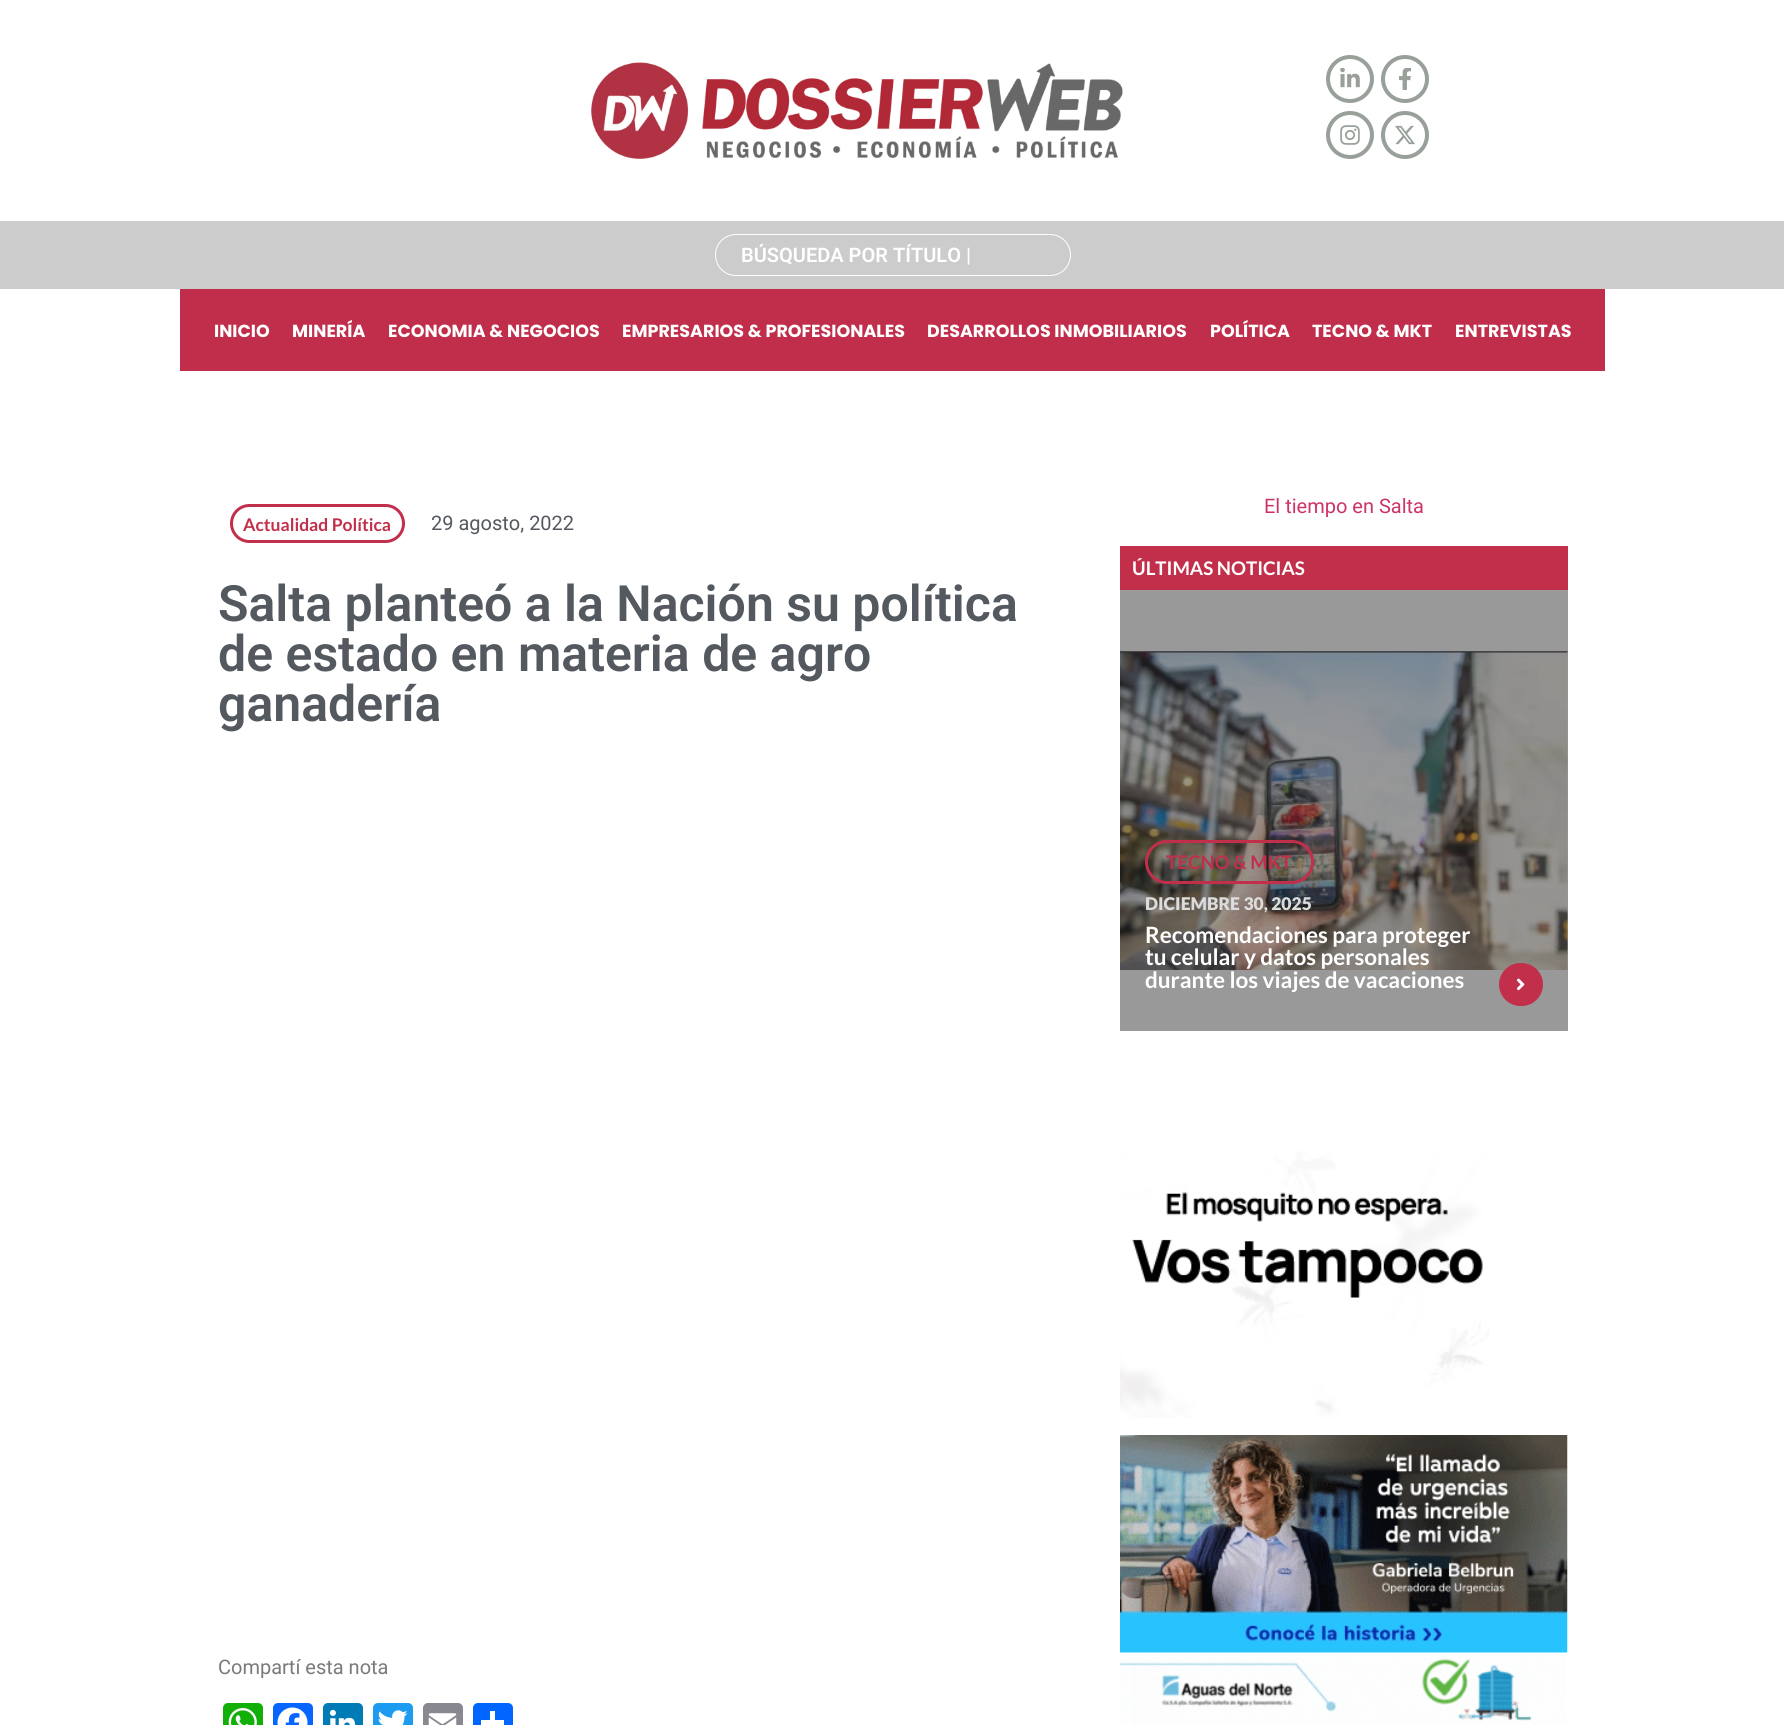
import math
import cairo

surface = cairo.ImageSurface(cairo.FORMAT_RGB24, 1784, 1725)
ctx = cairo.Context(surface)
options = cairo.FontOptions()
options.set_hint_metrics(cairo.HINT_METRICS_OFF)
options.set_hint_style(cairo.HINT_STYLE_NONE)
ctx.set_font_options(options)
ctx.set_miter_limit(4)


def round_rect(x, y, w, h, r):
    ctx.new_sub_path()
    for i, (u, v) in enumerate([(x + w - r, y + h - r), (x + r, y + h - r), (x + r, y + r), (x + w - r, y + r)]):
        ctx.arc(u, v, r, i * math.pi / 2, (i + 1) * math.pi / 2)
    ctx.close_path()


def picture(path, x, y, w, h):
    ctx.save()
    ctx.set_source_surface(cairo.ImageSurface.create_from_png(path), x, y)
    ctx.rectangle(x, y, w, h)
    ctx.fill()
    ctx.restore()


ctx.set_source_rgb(1, 1, 1)
ctx.paint()
ctx.set_source_rgb(0.6, 0.6, 0.6)
ctx.rectangle(1120, 590, 448, 441)
ctx.fill()
picture("img1.png", 591, 62, 532, 97)
ctx.arc(1350, 79, 22, 0, 2 * math.pi)
ctx.set_source_rgb(0.6, 0.627, 0.6)
ctx.set_line_width(4)
ctx.stroke()
picture("img2.png", 1340, 68, 20, 20)
ctx.arc(1405, 79, 22, 0, 2 * math.pi)
ctx.stroke()
picture("img3.png", 1399, 68, 12, 22)
ctx.arc(1350, 135, 22, 0, 2 * math.pi)
ctx.stroke()
picture("img4.png", 1340, 125, 20, 20)
ctx.arc(1405, 135, 22, 0, 2 * math.pi)
ctx.stroke()
picture("img5.png", 1395, 125, 20, 20)
ctx.set_source_rgb(0.8, 0.8, 0.8)
ctx.rectangle(0, 221, 1784, 68)
ctx.fill()
round_rect(715.5, 234.5, 355, 41, 20.5)
ctx.set_source_rgb(1, 1, 1)
ctx.set_line_width(1)
ctx.stroke()
ctx.select_font_face("Roboto SemiBold")
ctx.set_font_size(20)
ctx.move_to(741, 262)
ctx.show_text("BÚSQUEDA POR TÍTULO |")
ctx.set_source_rgb(0.753, 0.18, 0.294)
ctx.rectangle(180, 289, 1425, 82)
ctx.fill()
ctx.select_font_face("Poppins", cairo.FONT_SLANT_NORMAL, cairo.FONT_WEIGHT_BOLD)
ctx.set_font_size(17.5)
ctx.set_source_rgb(1, 1, 1)
ctx.move_to(214, 337)
ctx.show_text("INICIO")
ctx.move_to(292, 337)
ctx.show_text("MINERÍA")
ctx.move_to(388, 337)
ctx.show_text("ECONOMIA & NEGOCIOS")
ctx.move_to(622, 337)
ctx.show_text("EMPRESARIOS & PROFESIONALES")
ctx.move_to(927, 337)
ctx.show_text("DESARROLLOS INMOBILIARIOS")
ctx.move_to(1210, 337)
ctx.show_text("POLÍTICA")
ctx.move_to(1312, 337)
ctx.show_text("TECNO & MKT")
ctx.move_to(1455, 337)
ctx.show_text("ENTREVISTAS")
round_rect(231.5, 505.5, 172, 36, 18)
ctx.set_source_rgb(0.757, 0.184, 0.294)
ctx.set_line_width(3)
ctx.stroke()
ctx.select_font_face("Lato", cairo.FONT_SLANT_NORMAL, cairo.FONT_WEIGHT_BOLD)
ctx.move_to(243, 531)
ctx.show_text("Actualidad Política")
ctx.select_font_face("Roboto")
ctx.set_font_size(20)
ctx.set_source_rgb(0.329, 0.349, 0.373)
ctx.move_to(431, 530)
ctx.show_text("29 agosto, 2022")
ctx.select_font_face("Roboto SemiBold")
ctx.set_font_size(50)
ctx.move_to(218, 621)
ctx.show_text("Salta planteó a la Nación su política")
ctx.move_to(218, 671)
ctx.show_text("de estado en materia de agro")
ctx.move_to(218, 721)
ctx.show_text("ganadería")
ctx.select_font_face("Roboto")
ctx.set_font_size(20)
ctx.set_source_rgb(0.478, 0.478, 0.478)
ctx.move_to(218, 1674)
ctx.show_text("Compartí esta nota")
ctx.set_source_rgb(0.071, 0.686, 0.039)
round_rect(223, 1703, 40, 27, 5)
ctx.fill()
picture("img6.png", 228, 1708, 29, 17)
ctx.set_source_rgb(0.031, 0.4, 1)
round_rect(273, 1703, 40, 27, 5)
ctx.fill()
picture("img7.png", 277, 1707, 31, 18)
ctx.set_source_rgb(0, 0.482, 0.71)
round_rect(323, 1703, 40, 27, 5)
ctx.fill()
picture("img8.png", 329, 1709, 27, 16)
ctx.set_source_rgb(0.114, 0.608, 0.941)
round_rect(373, 1703, 40, 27, 5)
ctx.fill()
picture("img9.png", 378, 1710, 30, 15)
ctx.set_source_rgb(0.533, 0.537, 0.565)
round_rect(423, 1703, 40, 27, 5)
ctx.fill()
picture("img10.png", 428, 1713, 29, 12)
ctx.set_source_rgb(0.004, 0.4, 1)
round_rect(473, 1703, 40, 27, 5)
ctx.fill()
ctx.set_source_rgb(1, 1, 1)
ctx.rectangle(490, 1711, 5, 14)
ctx.fill()
ctx.rectangle(481, 1720, 23, 5)
ctx.fill()
ctx.set_source_rgb(0.8, 0.2, 0.4)
ctx.move_to(1264, 513)
ctx.show_text("El tiempo en Salta")
ctx.set_source_rgb(0.757, 0.184, 0.294)
ctx.rectangle(1120, 546, 448, 44)
ctx.fill()
ctx.select_font_face("Lato", cairo.FONT_SLANT_NORMAL, cairo.FONT_WEIGHT_BOLD)
ctx.set_font_size(18.75)
ctx.set_source_rgb(1, 1, 1)
ctx.move_to(1132, 575)
ctx.show_text("ÚLTIMAS NOTICIAS")
picture("img11.png", 1120, 651, 448, 319)
round_rect(1146.5, 841.5, 166, 41, 20.5)
ctx.set_source_rgb(0.757, 0.184, 0.294)
ctx.stroke()
ctx.move_to(1166, 869)
ctx.show_text("TECNO & MKT")
ctx.select_font_face("Lato Black")
ctx.set_font_size(17.5)
ctx.set_source_rgb(0.863, 0.863, 0.863)
ctx.move_to(1145, 910)
ctx.show_text("DICIEMBRE 30, 2025")
ctx.select_font_face("Lato", cairo.FONT_SLANT_NORMAL, cairo.FONT_WEIGHT_BOLD)
ctx.set_font_size(22.5)
ctx.set_source_rgb(1, 1, 1)
ctx.move_to(1145, 943)
ctx.show_text("Recomendaciones para proteger")
ctx.move_to(1145, 965)
ctx.show_text("tu celular y datos personales")
ctx.move_to(1145, 988)
ctx.show_text("durante los viajes de vacaciones")
ctx.set_source_rgb(0.757, 0.184, 0.294)
round_rect(1499, 963, 44, 43, 21.5)
ctx.fill()
picture("img12.png", 1516, 978, 9, 13)
picture("img13.png", 1120, 1151, 370, 267)
picture("img14.png", 1120, 1435, 448, 218)
picture("img15.png", 1120, 1657, 446, 68)
surface.write_to_png("page.png")
